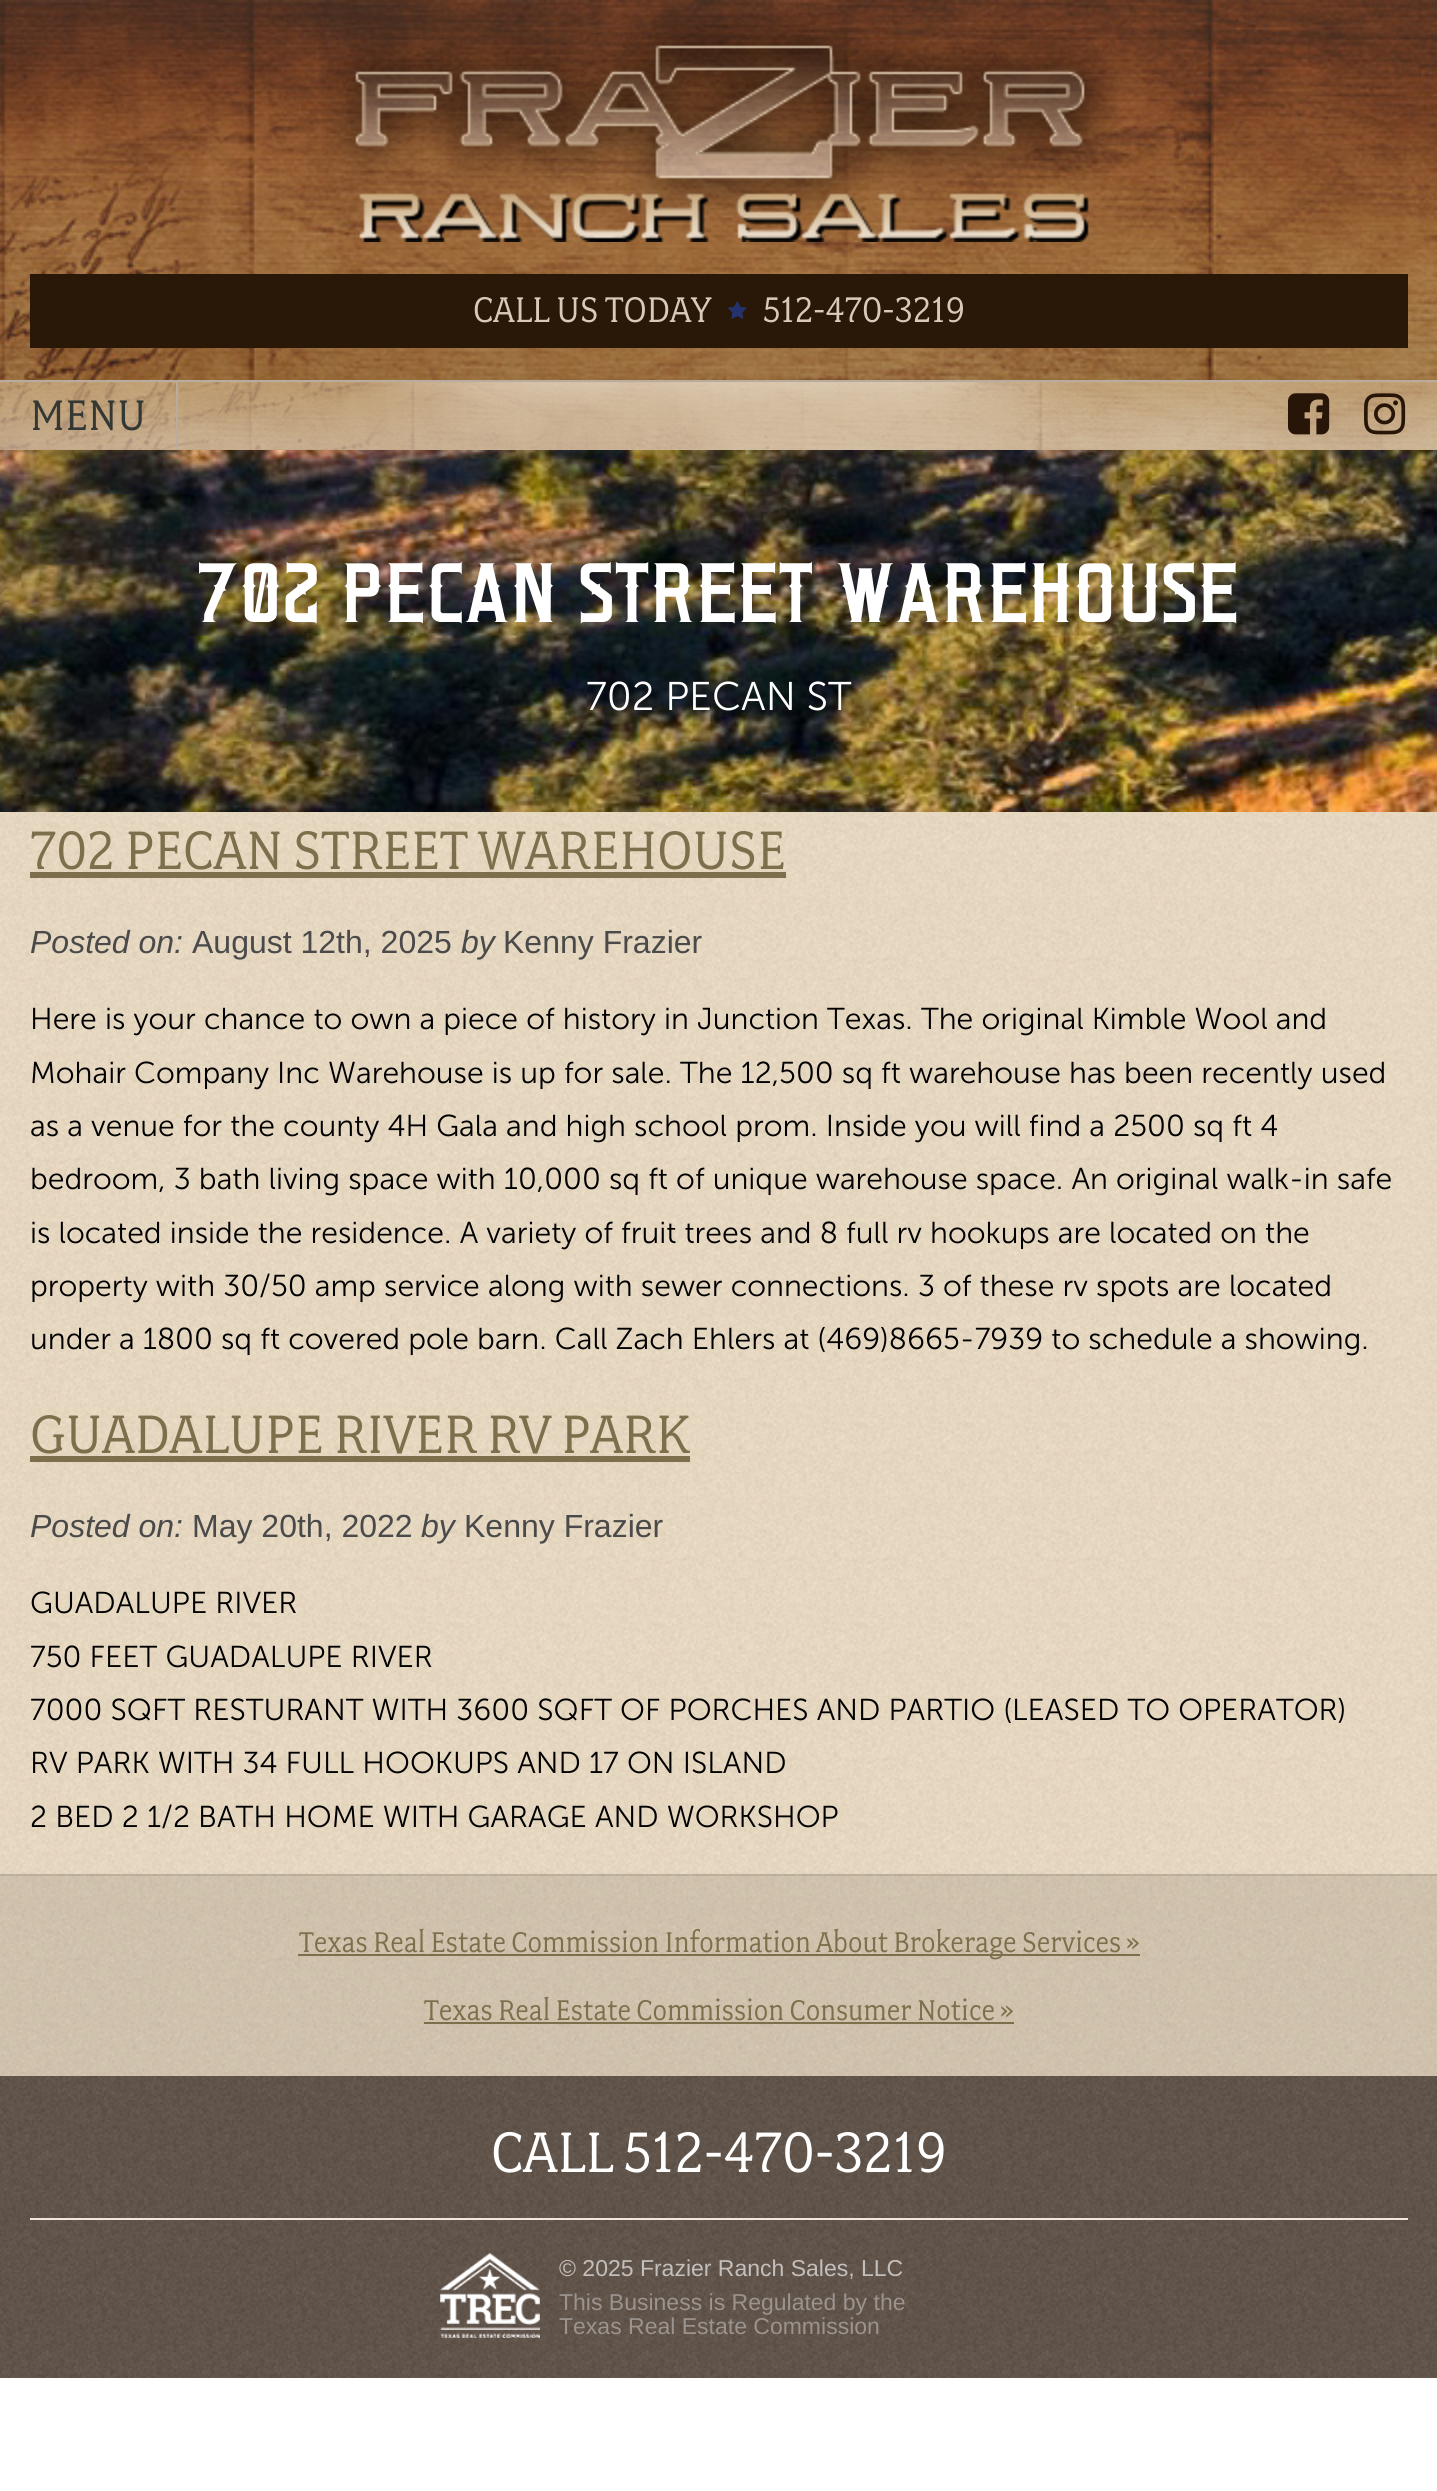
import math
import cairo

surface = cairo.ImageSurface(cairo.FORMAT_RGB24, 1437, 2491)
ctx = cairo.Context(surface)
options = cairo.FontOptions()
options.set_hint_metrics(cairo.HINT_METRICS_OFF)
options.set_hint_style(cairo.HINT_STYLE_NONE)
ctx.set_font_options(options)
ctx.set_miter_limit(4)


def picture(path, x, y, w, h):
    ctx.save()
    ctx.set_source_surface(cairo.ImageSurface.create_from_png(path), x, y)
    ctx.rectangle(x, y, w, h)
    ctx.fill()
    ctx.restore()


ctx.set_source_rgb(1, 1, 1)
ctx.paint()
picture("img1.png", 0, 0, 1437, 380)
picture("img2.png", 321, 9, 798, 233)
ctx.set_source_rgb(0.161, 0.09, 0.031)
ctx.rectangle(30, 274, 1378, 74)
ctx.fill()
ctx.select_font_face("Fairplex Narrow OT")
ctx.set_font_size(40)
ctx.set_source_rgb(0.847, 0.792, 0.725)
ctx.move_to(473, 322)
ctx.show_text("CALL US TODAY")
picture("img3.png", 728, 301, 19, 18)
ctx.move_to(763, 322)
ctx.show_text("512-470-3219")
picture("img4.png", 0, 382, 1437, 68)
ctx.set_source_rgb(0.722, 0.675, 0.624)
ctx.rectangle(0, 380, 1437, 2)
ctx.fill()
ctx.rectangle(176, 382, 2, 68)
ctx.fill()
ctx.set_font_size(48)
ctx.set_source_rgb(0.204, 0.22, 0.208)
ctx.move_to(30, 430)
ctx.show_text("MENU")
picture("img5.png", 1288, 393, 42, 42)
picture("img6.png", 1364, 393, 42, 42)
picture("img7.png", 0, 450, 1437, 362)
ctx.select_font_face("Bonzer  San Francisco")
ctx.set_font_size(110.25)
ctx.set_source_rgb(1, 1, 1)
ctx.move_to(199, 622)
ctx.show_text("702 PECAN STREET WAREHOUSE")
ctx.select_font_face("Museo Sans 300 Light")
ctx.set_font_size(40)
ctx.move_to(586, 710)
ctx.show_text("702 PECAN ST")
picture("img8.png", 0, 812, 1437, 1264)
ctx.select_font_face("Fairplex Narrow OT")
ctx.set_font_size(60.75)
ctx.set_source_rgb(0.49, 0.435, 0.294)
ctx.move_to(30, 869)
ctx.show_text("702 PECAN STREET WAREHOUSE")
ctx.rectangle(30, 872, 756, 6)
ctx.fill()
ctx.select_font_face("Liberation Sans", cairo.FONT_SLANT_ITALIC)
ctx.set_font_size(32)
ctx.set_source_rgb(0.29, 0.29, 0.29)
ctx.move_to(30, 953)
ctx.show_text("Posted on:")
ctx.select_font_face("Liberation Sans")
ctx.move_to(192, 953)
ctx.show_text("August 12th, 2025")
ctx.select_font_face("Liberation Sans", cairo.FONT_SLANT_ITALIC)
ctx.move_to(461, 953)
ctx.show_text("by")
ctx.select_font_face("Liberation Sans")
ctx.move_to(503, 953)
ctx.show_text("Kenny Frazier")
ctx.select_font_face("Museo Sans 300 Light")
ctx.set_font_size(30.2)
ctx.set_source_rgb(0, 0, 0)
ctx.move_to(30, 1029)
ctx.show_text("Here is your chance to own a piece of history in Junction Texas. The original Kimble Wool and")
ctx.move_to(30, 1083)
ctx.show_text("Mohair Company Inc Warehouse is up for sale. The 12,500 sq ft warehouse has been recently used")
ctx.move_to(30, 1136)
ctx.show_text("as a venue for the county 4H Gala and high school prom. Inside you will find a 2500 sq ft 4")
ctx.move_to(30, 1189)
ctx.show_text("bedroom, 3 bath living space with 10,000 sq ft of unique warehouse space. An original walk-in safe")
ctx.move_to(30, 1243)
ctx.show_text("is located inside the residence. A variety of fruit trees and 8 full rv hookups are located on the")
ctx.move_to(30, 1296)
ctx.show_text("property with 30/50 amp service along with sewer connections. 3 of these rv spots are located")
ctx.move_to(30, 1349)
ctx.show_text("under a 1800 sq ft covered pole barn. Call Zach Ehlers at (469)8665-7939 to schedule a showing.")
ctx.select_font_face("Fairplex Narrow OT")
ctx.set_font_size(60.75)
ctx.set_source_rgb(0.49, 0.435, 0.294)
ctx.move_to(30, 1453)
ctx.show_text("GUADALUPE RIVER RV PARK")
ctx.rectangle(30, 1456, 660, 6)
ctx.fill()
ctx.select_font_face("Liberation Sans", cairo.FONT_SLANT_ITALIC)
ctx.set_font_size(32)
ctx.set_source_rgb(0.29, 0.29, 0.29)
ctx.move_to(30, 1537)
ctx.show_text("Posted on:")
ctx.select_font_face("Liberation Sans")
ctx.move_to(192, 1537)
ctx.show_text("May 20th, 2022")
ctx.select_font_face("Liberation Sans", cairo.FONT_SLANT_ITALIC)
ctx.move_to(421, 1537)
ctx.show_text("by")
ctx.select_font_face("Liberation Sans")
ctx.move_to(464, 1537)
ctx.show_text("Kenny Frazier")
ctx.select_font_face("Museo Sans 300 Light")
ctx.set_font_size(30.2)
ctx.set_source_rgb(0, 0, 0)
ctx.move_to(30, 1613)
ctx.show_text("GUADALUPE RIVER")
ctx.move_to(30, 1667)
ctx.show_text("750 FEET GUADALUPE RIVER")
ctx.move_to(30, 1720)
ctx.show_text("7000 SQFT RESTURANT WITH 3600 SQFT OF PORCHES AND PARTIO (LEASED TO OPERATOR)")
ctx.move_to(30, 1773)
ctx.show_text("RV PARK WITH 34 FULL HOOKUPS AND 17 ON ISLAND")
ctx.move_to(30, 1827)
ctx.show_text("2 BED 2 1/2 BATH HOME WITH GARAGE AND WORKSHOP")
ctx.set_source_rgba(0, 0, 0, 0.1)
ctx.rectangle(0, 1874, 1437, 202)
ctx.fill()
ctx.rectangle(0, 1874, 1437, 2)
ctx.fill()
ctx.set_source_rgb(0.49, 0.435, 0.294)
ctx.rectangle(298, 1954, 842, 2)
ctx.fill()
ctx.select_font_face("Fairplex Narrow OT")
ctx.set_font_size(32)
ctx.move_to(299, 1952)
ctx.show_text("Texas Real Estate Commission Information About Brokerage Services »")
ctx.move_to(424, 2020)
ctx.show_text("Texas Real Estate Commission Consumer Notice »")
ctx.rectangle(424, 2022, 590, 2)
ctx.fill()
picture("img9.png", 0, 2076, 1437, 302)
ctx.set_source_rgb(0.941, 0.91, 0.863)
ctx.rectangle(30, 2218, 1378, 2)
ctx.fill()
ctx.set_font_size(64)
ctx.set_source_rgb(1, 1, 1)
ctx.move_to(491, 2172)
ctx.show_text("CALL 512-470-3219")
picture("img10.png", 440, 2253, 100, 85)
ctx.select_font_face("Liberation Sans")
ctx.set_font_size(23)
ctx.set_source_rgb(0.765, 0.749, 0.737)
ctx.move_to(559, 2276)
ctx.show_text("© 2025 Frazier Ranch Sales, LLC")
ctx.set_source_rgb(0.604, 0.576, 0.557)
ctx.move_to(559, 2310)
ctx.show_text("This Business is Regulated by the")
ctx.move_to(559, 2334)
ctx.show_text("Texas Real Estate Commission")
surface.write_to_png("page.png")
